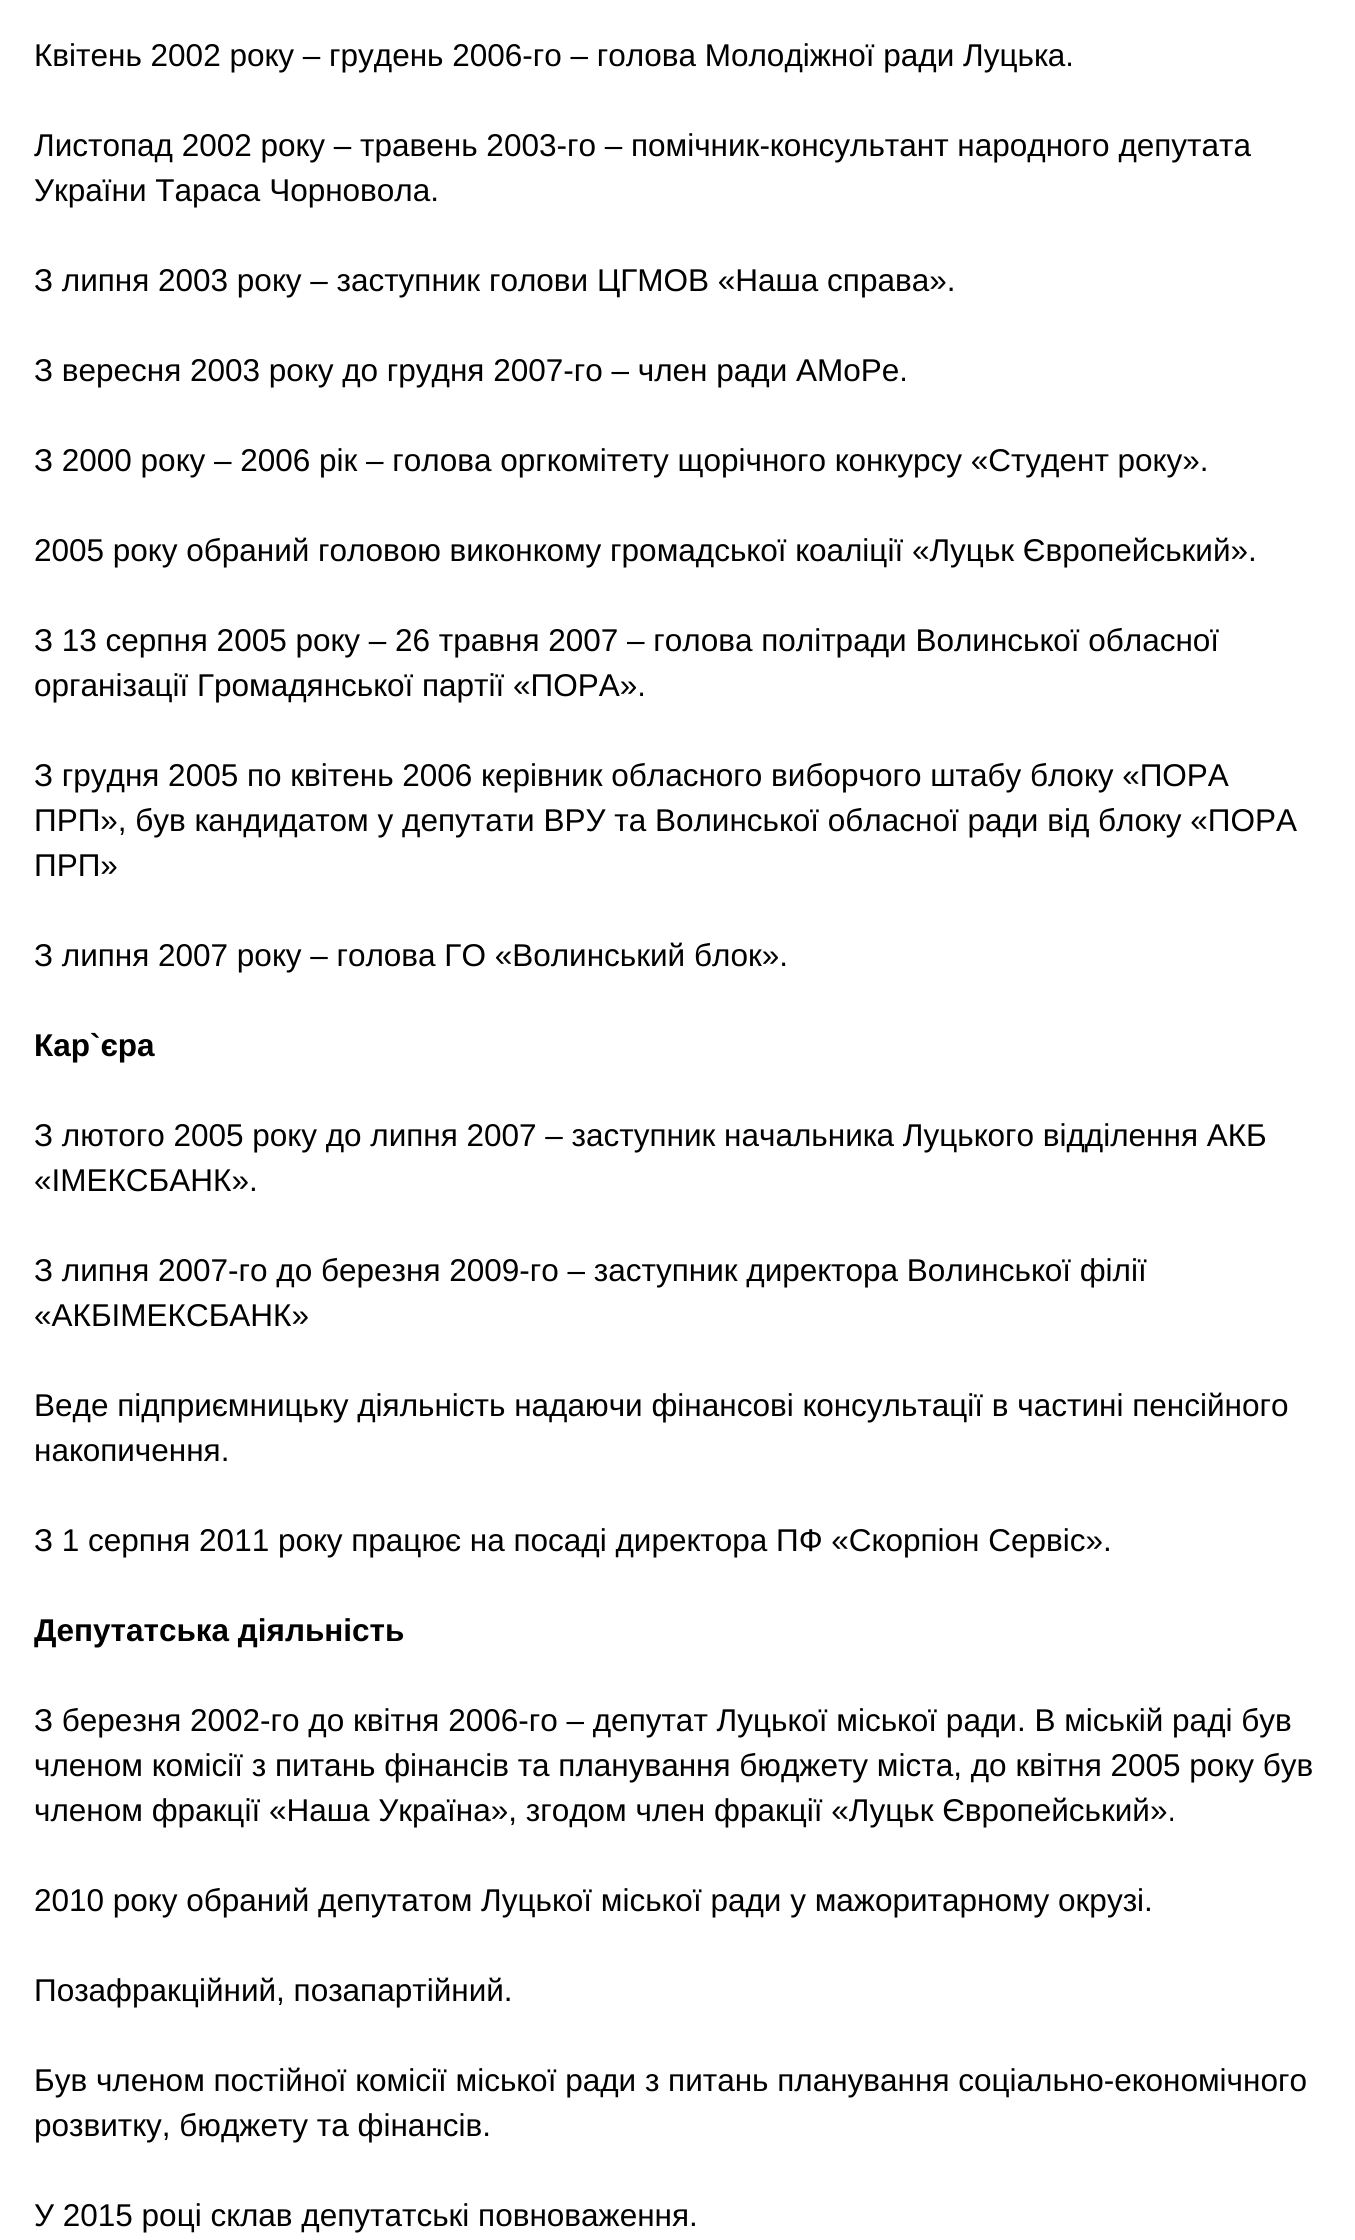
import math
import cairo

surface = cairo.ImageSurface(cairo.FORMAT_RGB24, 1355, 2240)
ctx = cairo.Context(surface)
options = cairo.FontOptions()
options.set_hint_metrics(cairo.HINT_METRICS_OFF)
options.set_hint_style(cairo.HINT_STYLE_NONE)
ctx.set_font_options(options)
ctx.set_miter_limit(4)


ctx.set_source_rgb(1, 1, 1)
ctx.paint()
ctx.select_font_face("Liberation Sans")
ctx.set_font_size(31.5)
ctx.set_source_rgb(0, 0, 0)
ctx.move_to(34, 66)
ctx.show_text("Квітень 2002 року – грудень 2006-го – голова Молодіжної ради Луцька.")
ctx.move_to(34, 156)
ctx.show_text("Листопад 2002 року – травень 2003-го – помічник-консультант народного депутата")
ctx.move_to(34, 201)
ctx.show_text("України Тараса Чорновола.")
ctx.move_to(34, 291)
ctx.show_text("З липня 2003 року – заступник голови ЦГМОВ «Наша справа».")
ctx.move_to(34, 381)
ctx.show_text("З вересня 2003 року до грудня 2007-го – член ради АМоРе.")
ctx.move_to(34, 471)
ctx.show_text("З 2000 року – 2006 рік – голова оргкомітету щорічного конкурсу «Студент року».")
ctx.move_to(34, 561)
ctx.show_text("2005 року обраний головою виконкому громадської коаліції «Луцьк Європейський».")
ctx.move_to(34, 651)
ctx.show_text("З 13 серпня 2005 року – 26 травня 2007 – голова політради Волинської обласної")
ctx.move_to(34, 696)
ctx.show_text("організації Громадянської партії «ПОРА».")
ctx.move_to(34, 786)
ctx.show_text("З грудня 2005 по квітень 2006 керівник обласного виборчого штабу блоку «ПОРА")
ctx.move_to(34, 831)
ctx.show_text("ПРП», був кандидатом у депутати ВРУ та Волинської обласної ради від блоку «ПОРА")
ctx.move_to(34, 876)
ctx.show_text("ПРП»")
ctx.move_to(34, 966)
ctx.show_text("З липня 2007 року – голова ГО «Волинський блок».")
ctx.select_font_face("Liberation Sans", cairo.FONT_SLANT_NORMAL, cairo.FONT_WEIGHT_BOLD)
ctx.move_to(34, 1056)
ctx.show_text("Кар`єра")
ctx.select_font_face("Liberation Sans")
ctx.move_to(34, 1146)
ctx.show_text("З лютого 2005 року до липня 2007 – заступник начальника Луцького відділення АКБ")
ctx.move_to(34, 1191)
ctx.show_text("«ІМЕКСБАНК».")
ctx.move_to(34, 1281)
ctx.show_text("З липня 2007-го до березня 2009-го – заступник директора Волинської філії")
ctx.move_to(34, 1326)
ctx.show_text("«АКБІМЕКСБАНК»")
ctx.move_to(34, 1416)
ctx.show_text("Веде підприємницьку діяльність надаючи фінансові консультації в частині пенсійного")
ctx.move_to(34, 1461)
ctx.show_text("накопичення.")
ctx.move_to(34, 1551)
ctx.show_text("З 1 серпня 2011 року працює на посаді директора ПФ «Скорпіон Сервіс».")
ctx.select_font_face("Liberation Sans", cairo.FONT_SLANT_NORMAL, cairo.FONT_WEIGHT_BOLD)
ctx.move_to(34, 1641)
ctx.show_text("Депутатська діяльність")
ctx.select_font_face("Liberation Sans")
ctx.move_to(34, 1731)
ctx.show_text("З березня 2002-го до квітня 2006-го – депутат Луцької міської ради. В міській раді був")
ctx.move_to(34, 1776)
ctx.show_text("членом комісії з питань фінансів та планування бюджету міста, до квітня 2005 року був")
ctx.move_to(34, 1821)
ctx.show_text("членом фракції «Наша Україна», згодом член фракції «Луцьк Європейський».")
ctx.move_to(34, 1911)
ctx.show_text("2010 року обраний депутатом Луцької міської ради у мажоритарному окрузі.")
ctx.move_to(34, 2001)
ctx.show_text("Позафракційний, позапартійний.")
ctx.move_to(34, 2091)
ctx.show_text("Був членом постійної комісії міської ради з питань планування соціально-економічного")
ctx.move_to(34, 2136)
ctx.show_text("розвитку, бюджету та фінансів.")
ctx.move_to(34, 2226)
ctx.show_text("У 2015 році склав депутатські повноваження.")
surface.write_to_png("page.png")
